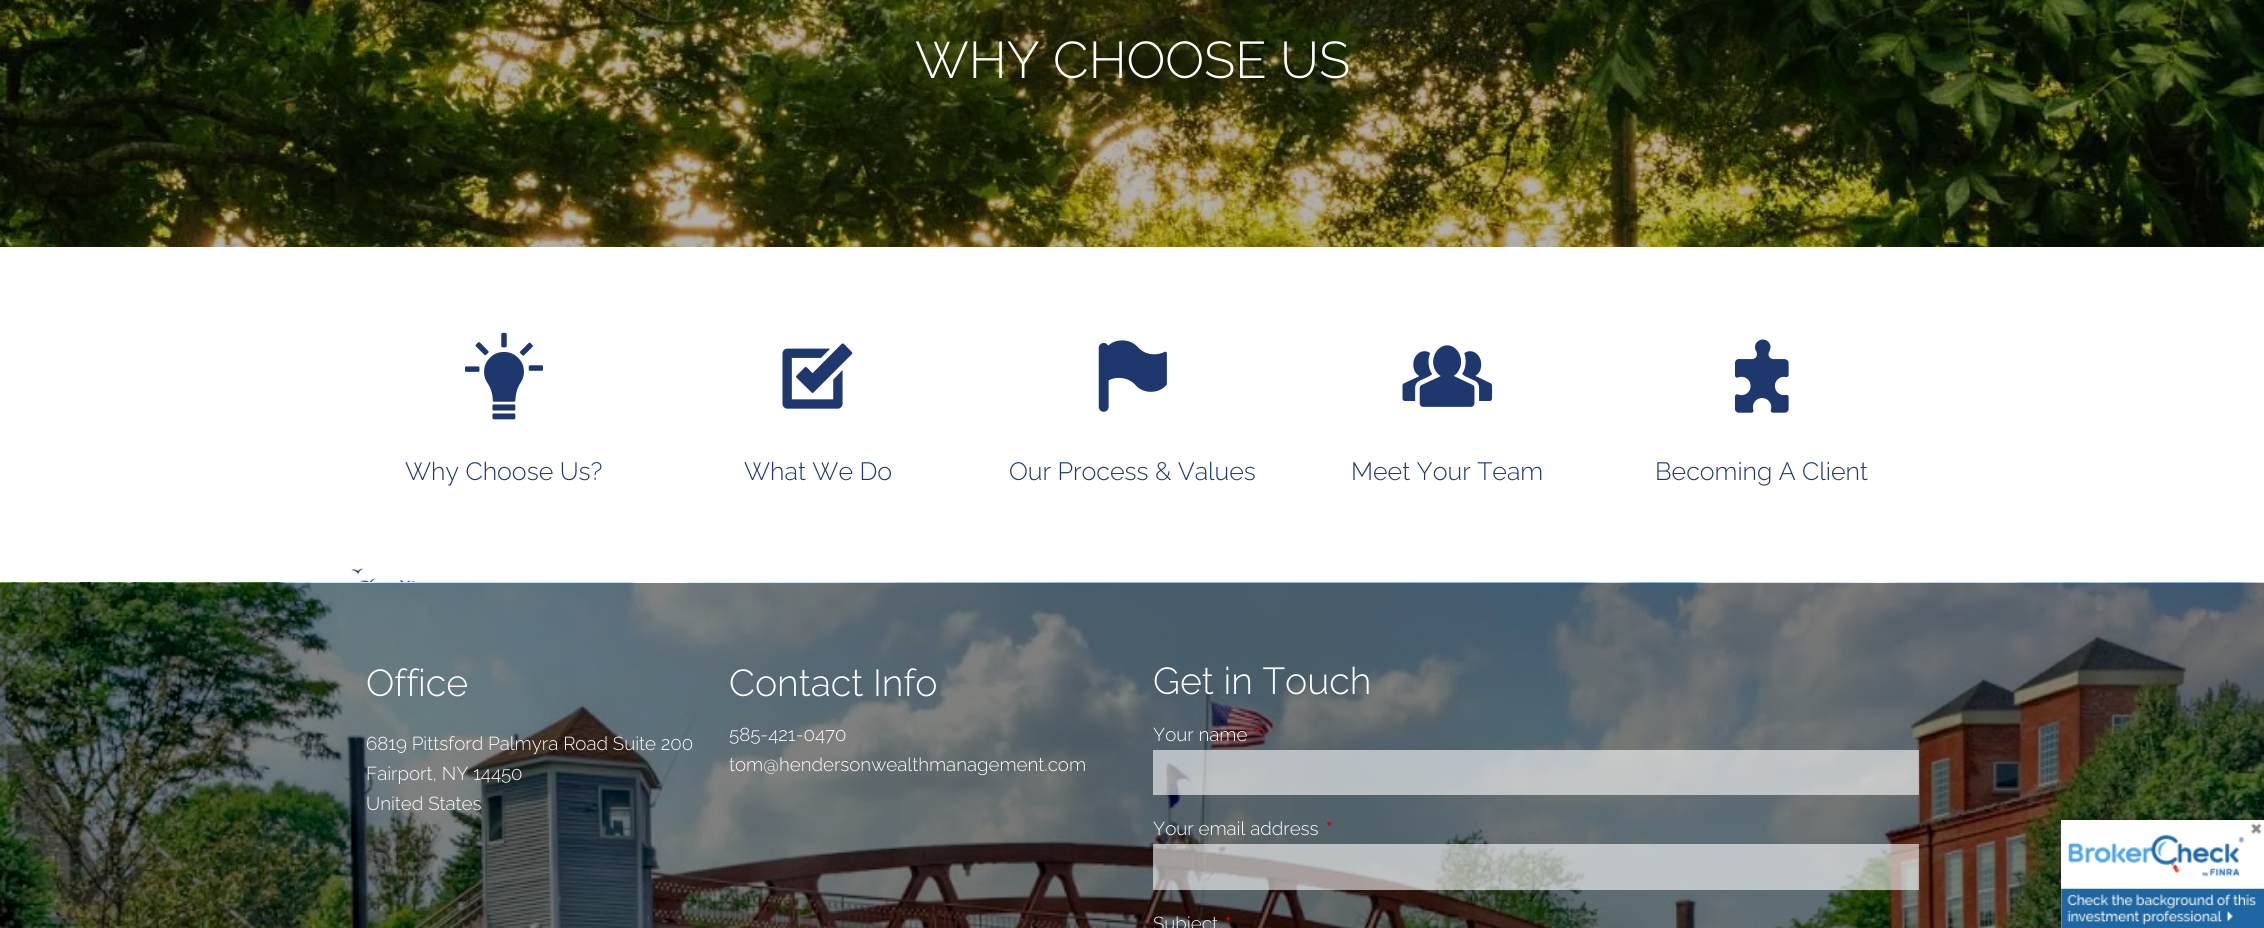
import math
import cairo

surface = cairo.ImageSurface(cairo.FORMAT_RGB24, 2264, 928)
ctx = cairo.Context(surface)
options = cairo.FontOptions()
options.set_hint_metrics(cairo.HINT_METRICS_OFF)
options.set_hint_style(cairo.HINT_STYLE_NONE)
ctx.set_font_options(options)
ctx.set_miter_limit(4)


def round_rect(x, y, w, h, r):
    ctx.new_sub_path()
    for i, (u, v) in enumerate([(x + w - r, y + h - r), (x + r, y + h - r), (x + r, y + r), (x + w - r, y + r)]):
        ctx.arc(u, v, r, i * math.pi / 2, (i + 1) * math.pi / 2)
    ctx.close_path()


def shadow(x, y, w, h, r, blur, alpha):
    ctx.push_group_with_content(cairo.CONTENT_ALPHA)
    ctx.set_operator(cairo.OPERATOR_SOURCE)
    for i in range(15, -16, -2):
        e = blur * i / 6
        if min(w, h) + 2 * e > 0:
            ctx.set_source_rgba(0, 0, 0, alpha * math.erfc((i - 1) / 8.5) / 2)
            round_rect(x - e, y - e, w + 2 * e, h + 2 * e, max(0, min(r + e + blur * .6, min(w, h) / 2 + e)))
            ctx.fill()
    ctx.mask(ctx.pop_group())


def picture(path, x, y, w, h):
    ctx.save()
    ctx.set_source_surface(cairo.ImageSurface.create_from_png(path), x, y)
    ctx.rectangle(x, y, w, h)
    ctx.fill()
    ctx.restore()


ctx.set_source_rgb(1, 1, 1)
ctx.paint()
picture("img1.png", 0, 0, 2264, 247)
ctx.select_font_face("Raleway Light")
ctx.set_font_size(51.5)
ctx.set_source_rgb(1, 1, 1)
ctx.move_to(915, 78)
ctx.show_text("WHY CHOOSE US")
picture("img2.png", 465, 332, 78, 88)
ctx.set_font_size(25)
ctx.set_source_rgb(0.118, 0.22, 0.427)
ctx.move_to(405, 480)
ctx.show_text("Why Choose Us?")
picture("img3.png", 782, 343, 71, 66)
ctx.move_to(744, 480)
ctx.show_text("What We Do")
picture("img4.png", 1098, 340, 69, 72)
ctx.move_to(1009, 480)
ctx.show_text("Our Process & Values")
picture("img5.png", 1402, 345, 91, 62)
ctx.move_to(1351, 480)
ctx.show_text("Meet Your Team")
picture("img6.png", 1735, 339, 54, 74)
ctx.move_to(1655, 480)
ctx.show_text("Becoming A Client")
picture("img7.png", 351, 568, 64, 14)
picture("img8.png", 0, 582, 2264, 346)
ctx.set_font_size(37.5)
ctx.set_source_rgb(1, 1, 1)
ctx.move_to(366, 696)
ctx.show_text("Office")
ctx.set_font_size(18.75)
ctx.move_to(366, 750)
ctx.show_text("6819 Pittsford Palmyra Road Suite 200")
ctx.move_to(366, 780)
ctx.show_text("Fairport, NY 14450")
ctx.move_to(366, 810)
ctx.show_text("United States")
ctx.set_font_size(37.5)
ctx.move_to(729, 696)
ctx.show_text("Contact Info")
ctx.set_font_size(18.75)
ctx.move_to(729, 741)
ctx.show_text("585-421-0470")
ctx.move_to(729, 771)
ctx.show_text("tom@hendersonwealthmanagement.com")
ctx.set_font_size(37.5)
ctx.move_to(1153, 694)
ctx.show_text("Get in Touch")
ctx.set_font_size(18.75)
ctx.move_to(1153, 741)
ctx.show_text("Your name")
ctx.select_font_face("Raleway Thin")
ctx.set_source_rgb(0.8, 0, 0)
ctx.move_to(1255, 741)
ctx.show_text("*")
ctx.set_source_rgba(0.996, 0.996, 0.996, 0.6)
ctx.rectangle(1153, 750, 766, 45)
ctx.fill()
ctx.select_font_face("Raleway Light")
ctx.set_source_rgb(1, 1, 1)
ctx.move_to(1153, 835)
ctx.show_text("Your email address")
ctx.select_font_face("Raleway Thin")
ctx.set_source_rgb(0.8, 0, 0)
ctx.move_to(1326, 835)
ctx.show_text("*")
ctx.set_source_rgba(0.996, 0.996, 0.996, 0.6)
ctx.rectangle(1153, 844, 766, 46)
ctx.fill()
ctx.select_font_face("Raleway Light")
ctx.set_source_rgb(1, 1, 1)
ctx.move_to(1153, 930)
ctx.show_text("Subject")
ctx.select_font_face("Raleway Thin")
ctx.set_source_rgb(0.8, 0, 0)
ctx.move_to(1225, 930)
ctx.show_text("*")
ctx.set_source_rgb(1, 1, 1)
ctx.rectangle(2061, 820, 203, 108)
ctx.fill()
ctx.save()
ctx.set_fill_rule(cairo.FILL_RULE_EVEN_ODD)
ctx.new_path()
ctx.move_to(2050, 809)
ctx.line_to(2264, 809)
ctx.line_to(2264, 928)
ctx.line_to(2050, 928)
ctx.close_path()
ctx.move_to(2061, 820)
ctx.line_to(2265, 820)
ctx.line_to(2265, 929)
ctx.line_to(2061, 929)
ctx.close_path()
ctx.clip()
ctx.set_source_rgb(0, 0, 0)
shadow(2060, 819, 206, 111, 0, 3, 0.25)
ctx.restore()
picture("img9.png", 2061, 823, 203, 105)
surface.write_to_png("page.png")
